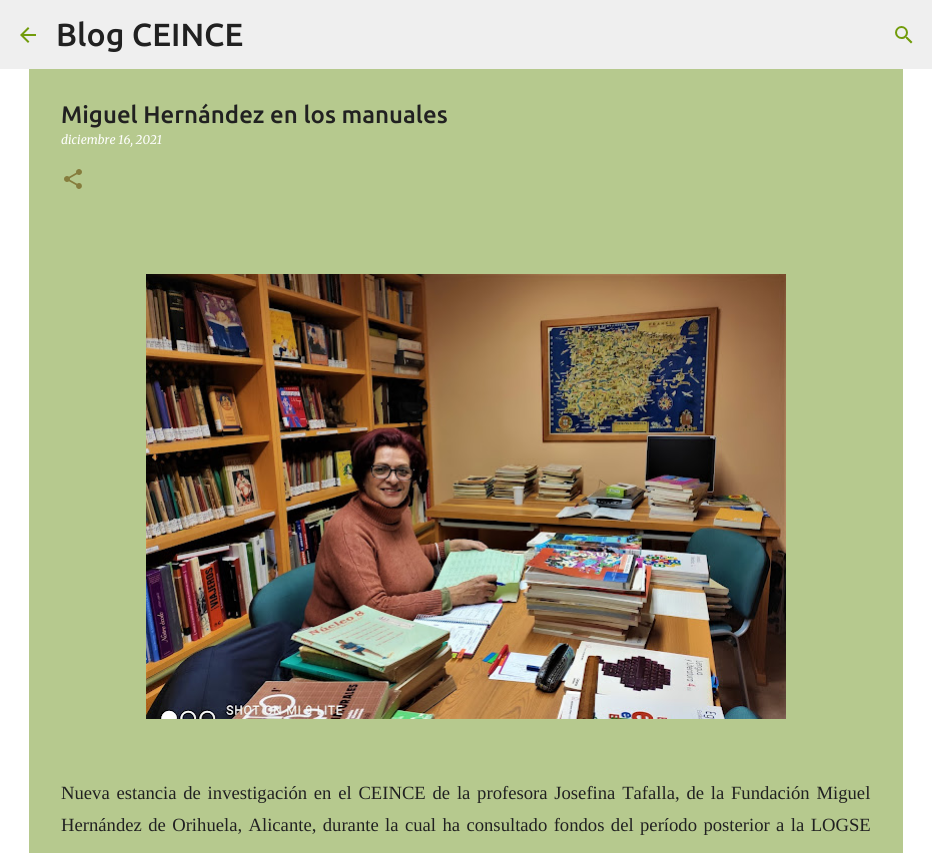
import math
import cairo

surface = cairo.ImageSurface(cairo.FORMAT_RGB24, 932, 853)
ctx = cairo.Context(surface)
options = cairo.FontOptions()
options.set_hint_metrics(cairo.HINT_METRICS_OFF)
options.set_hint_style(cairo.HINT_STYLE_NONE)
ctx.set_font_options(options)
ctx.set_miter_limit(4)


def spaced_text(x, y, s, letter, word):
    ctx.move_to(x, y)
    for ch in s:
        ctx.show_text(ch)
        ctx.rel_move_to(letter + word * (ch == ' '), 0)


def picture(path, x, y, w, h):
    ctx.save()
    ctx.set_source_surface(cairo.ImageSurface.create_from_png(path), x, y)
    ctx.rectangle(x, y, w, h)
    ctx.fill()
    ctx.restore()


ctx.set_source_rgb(1, 1, 1)
ctx.paint()
ctx.set_source_rgb(0.937, 0.937, 0.937)
ctx.rectangle(0, 0, 932, 69)
ctx.fill()
picture("img1.png", 20, 27, 16, 16)
ctx.select_font_face("Ubuntu Medium")
ctx.set_font_size(32)
ctx.set_source_rgb(0.129, 0.129, 0.129)
ctx.move_to(56, 46)
ctx.show_text("Blog CEINCE")
picture("img2.png", 895, 26, 18, 18)
ctx.set_source_rgb(0.714, 0.788, 0.557)
ctx.rectangle(29, 69, 874, 784)
ctx.fill()
ctx.set_font_size(24)
ctx.set_source_rgb(0.129, 0.129, 0.129)
ctx.move_to(61, 123)
ctx.show_text("Miguel Hernández en los manuales")
ctx.select_font_face("Merriweather", cairo.FONT_SLANT_ITALIC)
ctx.set_font_size(12)
ctx.set_source_rgb(1, 1, 1)
ctx.move_to(61, 144)
ctx.show_text("diciembre 16, 2021")
picture("img3.png", 64, 169, 18, 20)
picture("img4.png", 146, 274, 640, 445)
ctx.select_font_face("Liberation Serif")
ctx.set_font_size(18.65)
ctx.set_source_rgb(0.129, 0.129, 0.129)
spaced_text(61, 799, "Nueva estancia de investigación en el CEINCE de la profesora Josefina Tafalla, de la Fundación Miguel", 0, 2.1)
spaced_text(61, 831, "Hernández de Orihuela, Alicante, durante la cual ha consultado fondos del período posterior a la LOGSE", 0, 1.75)
surface.write_to_png("page.png")
